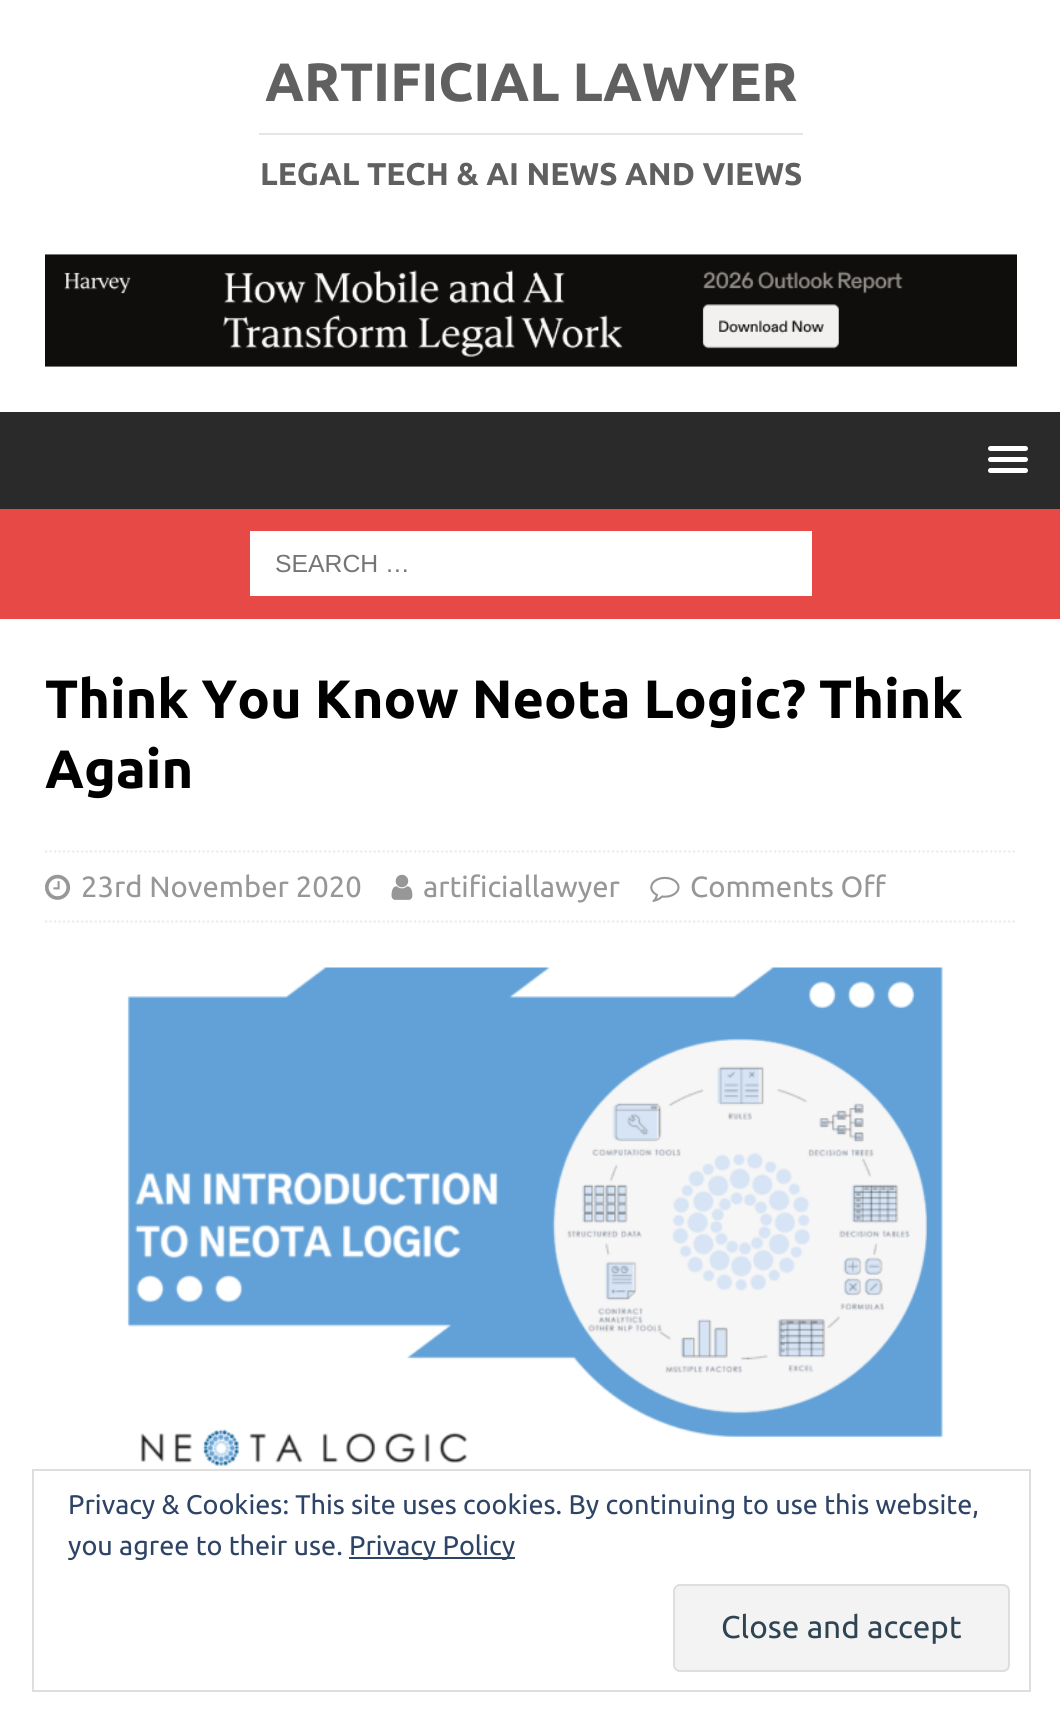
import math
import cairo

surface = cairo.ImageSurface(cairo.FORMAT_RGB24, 1060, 1722)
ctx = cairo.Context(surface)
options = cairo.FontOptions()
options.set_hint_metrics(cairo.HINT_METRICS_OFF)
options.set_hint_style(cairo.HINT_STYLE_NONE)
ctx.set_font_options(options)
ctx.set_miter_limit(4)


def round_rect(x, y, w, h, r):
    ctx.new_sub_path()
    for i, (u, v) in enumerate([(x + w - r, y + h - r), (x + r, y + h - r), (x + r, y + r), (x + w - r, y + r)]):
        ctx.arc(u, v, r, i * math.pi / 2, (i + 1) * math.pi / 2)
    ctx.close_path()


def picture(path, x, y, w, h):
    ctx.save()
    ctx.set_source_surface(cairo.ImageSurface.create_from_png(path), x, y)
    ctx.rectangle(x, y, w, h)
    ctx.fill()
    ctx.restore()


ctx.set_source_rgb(1, 1, 1)
ctx.paint()
ctx.select_font_face("Ubuntu", cairo.FONT_SLANT_NORMAL, cairo.FONT_WEIGHT_BOLD)
ctx.set_font_size(54)
ctx.set_source_rgb(0.376, 0.376, 0.376)
ctx.move_to(265, 101)
ctx.show_text("ARTIFICIAL LAWYER")
ctx.set_source_rgb(0.898, 0.898, 0.898)
ctx.rectangle(259, 133, 544, 2)
ctx.fill()
ctx.set_font_size(31.5)
ctx.set_source_rgb(0.376, 0.376, 0.376)
ctx.move_to(260, 185)
ctx.show_text("LEGAL TECH & AI NEWS AND VIEWS")
picture("img1.png", 45, 254, 972, 113)
ctx.set_source_rgb(0.165, 0.165, 0.165)
ctx.rectangle(0, 412, 1060, 97)
ctx.fill()
ctx.set_source_rgb(1, 1, 1)
round_rect(988, 446, 40, 5, 2.5)
ctx.fill()
round_rect(988, 457, 40, 5, 2.5)
ctx.fill()
round_rect(988, 468, 40, 5, 2.5)
ctx.fill()
ctx.set_source_rgb(0.902, 0.286, 0.275)
ctx.rectangle(0, 509, 1060, 110)
ctx.fill()
ctx.set_source_rgb(1, 1, 1)
ctx.rectangle(250, 531, 562, 65)
ctx.fill()
ctx.select_font_face("Liberation Sans")
ctx.set_font_size(24.75)
ctx.set_source_rgb(0.459, 0.459, 0.459)
ctx.move_to(275, 572)
ctx.show_text("SEARCH …")
ctx.select_font_face("Ubuntu", cairo.FONT_SLANT_NORMAL, cairo.FONT_WEIGHT_BOLD)
ctx.set_font_size(54)
ctx.set_source_rgb(0, 0, 0)
ctx.move_to(45, 718)
ctx.show_text("Think You Know Neota Logic? Think")
ctx.move_to(45, 788)
ctx.show_text("Again")
ctx.new_path()
ctx.move_to(45, 851.5)
ctx.line_to(1017, 851.5)
ctx.set_source_rgb(0.922, 0.922, 0.922)
ctx.set_line_width(2.2)
ctx.set_dash([2.25, 2.25])
ctx.stroke()
ctx.new_path()
ctx.move_to(45, 921.5)
ctx.line_to(1017, 921.5)
ctx.stroke()
picture("img2.png", 45, 874, 26, 26)
ctx.select_font_face("Ubuntu")
ctx.set_font_size(29.25)
ctx.set_source_rgb(0.592, 0.592, 0.592)
ctx.move_to(81, 897)
ctx.show_text("23rd November 2020")
picture("img3.png", 391, 874, 22, 26)
ctx.move_to(423, 897)
ctx.show_text("artificiallawyer")
picture("img4.png", 650, 876, 30, 26)
ctx.move_to(690, 897)
ctx.show_text("Comments Off")
picture("img5.png", 127, 967, 816, 502)
ctx.rectangle(33, 1470, 997, 221)
ctx.set_source_rgb(0.871, 0.871, 0.871)
ctx.set_line_width(2)
ctx.set_dash([])
ctx.stroke()
ctx.set_font_size(27)
ctx.set_source_rgb(0.18, 0.267, 0.404)
ctx.move_to(68, 1514)
ctx.show_text("Privacy & Cookies: This site uses cookies. By continuing to use this website,")
ctx.move_to(68, 1555)
ctx.show_text("you agree to their use.")
ctx.rectangle(349, 1557, 166, 2)
ctx.fill()
ctx.move_to(349, 1555)
ctx.show_text("Privacy Policy")
ctx.set_source_rgb(0.953, 0.953, 0.953)
round_rect(674, 1585, 335, 86, 6)
ctx.fill_preserve()
ctx.set_source_rgb(0.871, 0.871, 0.871)
ctx.stroke()
ctx.set_font_size(31.5)
ctx.set_source_rgb(0.18, 0.267, 0.325)
ctx.move_to(721, 1638)
ctx.show_text("Close and accept")
surface.write_to_png("page.png")
